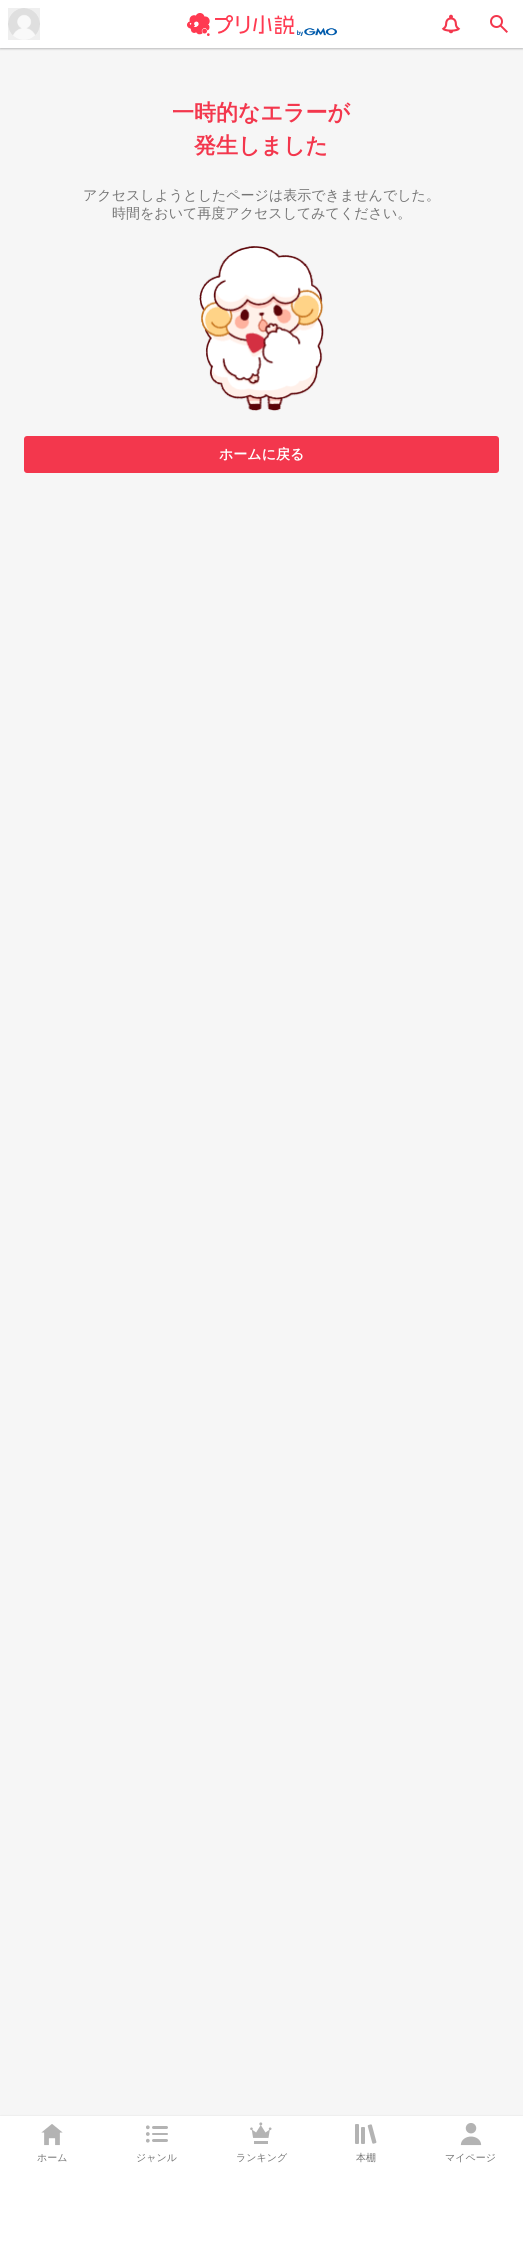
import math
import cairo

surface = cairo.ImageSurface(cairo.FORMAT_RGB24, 523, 2245)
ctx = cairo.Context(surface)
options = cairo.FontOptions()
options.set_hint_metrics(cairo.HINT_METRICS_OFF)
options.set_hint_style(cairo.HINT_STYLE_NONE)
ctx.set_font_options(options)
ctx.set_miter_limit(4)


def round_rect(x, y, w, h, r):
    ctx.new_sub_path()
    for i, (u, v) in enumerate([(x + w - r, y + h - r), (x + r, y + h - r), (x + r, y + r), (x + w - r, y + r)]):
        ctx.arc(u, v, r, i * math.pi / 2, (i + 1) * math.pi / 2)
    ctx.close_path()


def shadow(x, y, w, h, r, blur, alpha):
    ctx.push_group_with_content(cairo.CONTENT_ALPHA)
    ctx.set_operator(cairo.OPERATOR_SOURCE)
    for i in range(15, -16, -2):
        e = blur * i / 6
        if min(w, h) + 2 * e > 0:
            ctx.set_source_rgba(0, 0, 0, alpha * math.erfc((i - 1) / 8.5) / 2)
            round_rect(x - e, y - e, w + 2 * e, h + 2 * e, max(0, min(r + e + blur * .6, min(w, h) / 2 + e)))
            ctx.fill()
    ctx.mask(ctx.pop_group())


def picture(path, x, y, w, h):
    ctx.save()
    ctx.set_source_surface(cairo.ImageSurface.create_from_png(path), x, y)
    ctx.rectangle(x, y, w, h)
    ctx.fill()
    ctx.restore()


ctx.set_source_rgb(0.961, 0.961, 0.961)
ctx.paint()
ctx.set_source_rgb(0.125, 0.129, 0.141)
shadow(0, -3, 523, 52, 0, 1, 0.28)
ctx.set_source_rgb(1, 1, 1)
ctx.rectangle(0, 0, 523, 48)
ctx.fill()
ctx.set_source_rgb(0.937, 0.937, 0.937)
ctx.rectangle(8, 8, 32, 32)
ctx.fill()
picture("img1.png", 8, 8, 32, 32)
picture("img2.png", 187, 13, 150, 23)
picture("img3.png", 441, 14, 20, 20)
picture("img4.png", 490, 15, 18, 18)
ctx.select_font_face("WenQuanYi Zen Hei", cairo.FONT_SLANT_NORMAL, cairo.FONT_WEIGHT_BOLD)
ctx.set_font_size(22)
ctx.set_source_rgb(0.953, 0.216, 0.302)
ctx.move_to(172, 120)
ctx.show_text("一時的なエラーが")
ctx.move_to(194, 153)
ctx.show_text("発生しました")
ctx.select_font_face("WenQuanYi Zen Hei Medium")
ctx.set_font_size(14)
ctx.set_source_rgb(0.459, 0.459, 0.459)
ctx.move_to(83, 200)
ctx.show_text("アクセスしようとしたページは表示できませんでした。")
ctx.move_to(112, 218)
ctx.show_text("時間をおいて再度アクセスしてみてください。")
picture("img5.png", 199, 246, 125, 165)
ctx.set_source_rgb(0.953, 0.216, 0.302)
round_rect(24, 436, 475, 37, 3)
ctx.fill()
ctx.select_font_face("WenQuanYi Zen Hei", cairo.FONT_SLANT_NORMAL, cairo.FONT_WEIGHT_BOLD)
ctx.set_source_rgb(1, 1, 1)
ctx.move_to(219, 459)
ctx.show_text("ホームに戻る")
ctx.set_source_rgb(0.024, 0.024, 0.024)
shadow(0, 2116, 523, 129, 0, 1, 0.08)
ctx.set_source_rgb(1, 1, 1)
ctx.rectangle(0, 2116, 523, 129)
ctx.fill()
picture("img6.png", 41, 2124, 22, 22)
ctx.select_font_face("WenQuanYi Zen Hei Medium")
ctx.set_font_size(10)
ctx.set_source_rgb(0.459, 0.459, 0.459)
ctx.move_to(37, 2161)
ctx.show_text("ホーム")
picture("img7.png", 146, 2125, 22, 18)
ctx.move_to(136, 2161)
ctx.show_text("ジャンル")
picture("img8.png", 250, 2122, 22, 22)
ctx.move_to(236, 2161)
ctx.show_text("ランキング")
picture("img9.png", 355, 2124, 22, 20)
ctx.move_to(356, 2161)
ctx.show_text("本棚")
picture("img10.png", 460, 2123, 22, 23)
ctx.move_to(445, 2161)
ctx.show_text("マイページ")
surface.write_to_png("page.png")
